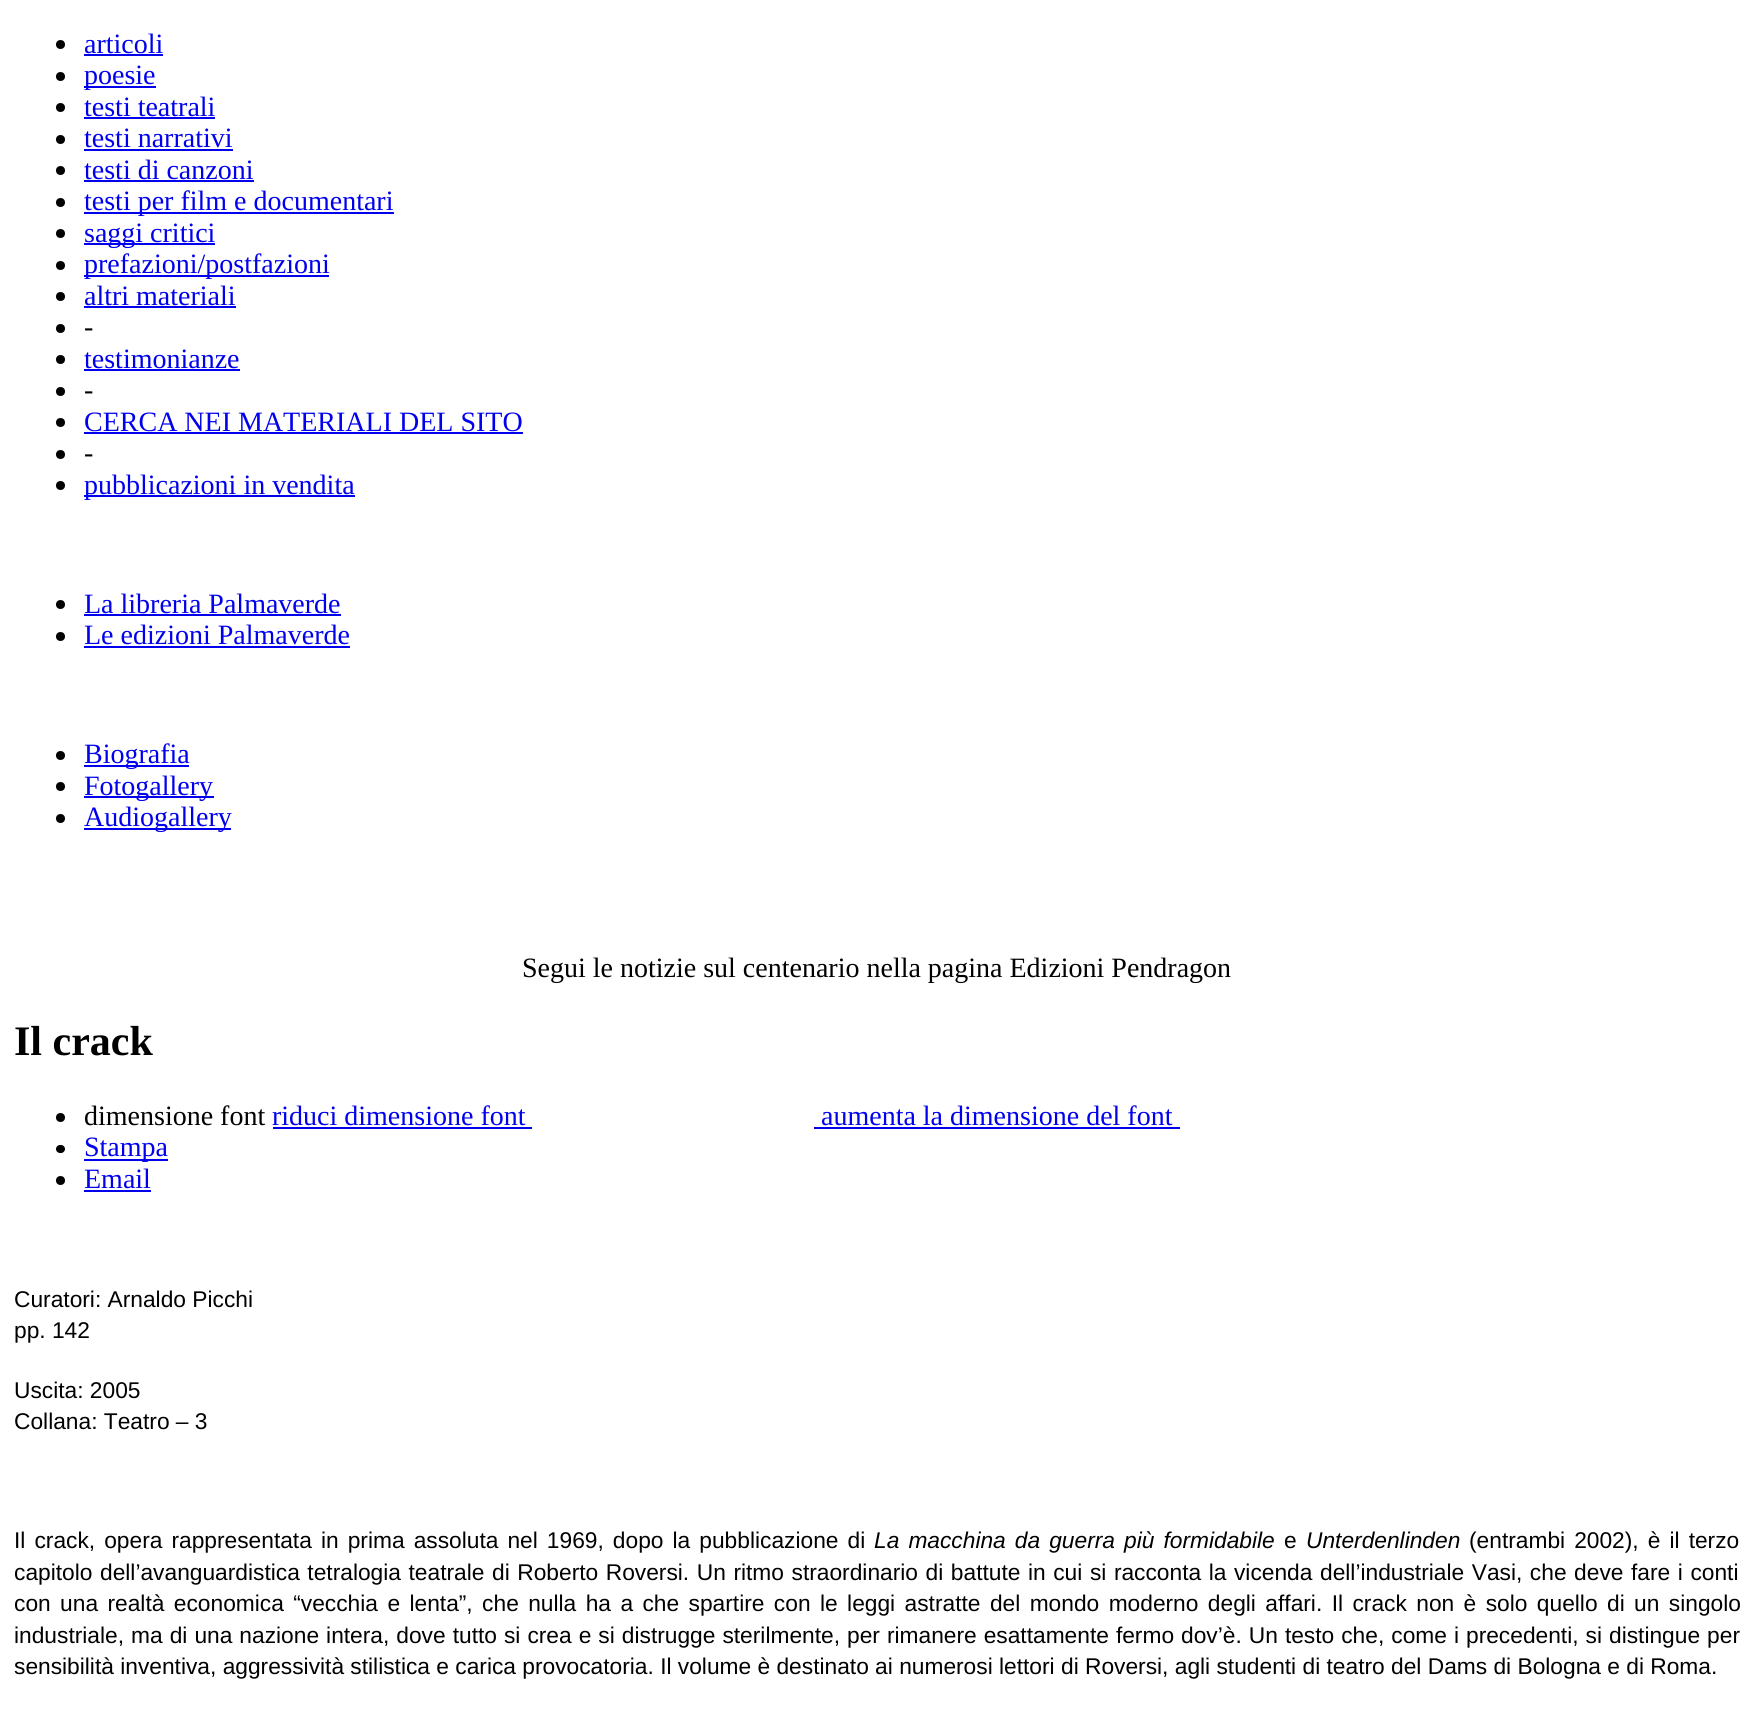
import math
import cairo

surface = cairo.ImageSurface(cairo.FORMAT_RGB24, 1752, 1736)
ctx = cairo.Context(surface)
options = cairo.FontOptions()
options.set_hint_metrics(cairo.HINT_METRICS_OFF)
options.set_hint_style(cairo.HINT_STYLE_NONE)
ctx.set_font_options(options)
ctx.set_miter_limit(4)


def spaced_text(x, y, s, letter, word):
    ctx.move_to(x, y)
    for ch in s:
        ctx.show_text(ch)
        ctx.rel_move_to(letter + word * (ch == ' '), 0)


def round_rect(x, y, w, h, r):
    ctx.new_sub_path()
    for i, (u, v) in enumerate([(x + w - r, y + h - r), (x + r, y + h - r), (x + r, y + r), (x + w - r, y + r)]):
        ctx.arc(u, v, r, i * math.pi / 2, (i + 1) * math.pi / 2)
    ctx.close_path()


ctx.set_source_rgb(1, 1, 1)
ctx.paint()
ctx.set_source_rgb(0, 0, 0)
ctx.arc(60.5, 44.5, 4.5, 0, 2 * math.pi)
ctx.fill()
ctx.select_font_face("Liberation Serif")
ctx.set_font_size(28)
ctx.set_source_rgb(0, 0, 0.933)
ctx.move_to(84, 53)
ctx.show_text("articoli")
ctx.rectangle(84, 54, 79, 2)
ctx.fill()
ctx.set_source_rgb(0, 0, 0)
ctx.arc(60.5, 76.5, 4.5, 0, 2 * math.pi)
ctx.fill()
ctx.set_source_rgb(0, 0, 0.933)
ctx.rectangle(84, 86, 72, 2)
ctx.fill()
ctx.move_to(84, 84)
ctx.show_text("poesie")
ctx.set_source_rgb(0, 0, 0)
ctx.new_path()
ctx.arc(60.5, 107.5, 4.5, 0, 2 * math.pi)
ctx.fill()
ctx.set_source_rgb(0, 0, 0.933)
ctx.move_to(84, 116)
ctx.show_text("testi teatrali")
ctx.rectangle(84, 117, 131, 2)
ctx.fill()
ctx.set_source_rgb(0, 0, 0)
ctx.arc(60.5, 139.5, 4.5, 0, 2 * math.pi)
ctx.fill()
ctx.set_source_rgb(0, 0, 0.933)
ctx.move_to(84, 147)
ctx.show_text("testi narrativi")
ctx.rectangle(84, 149, 149, 2)
ctx.fill()
ctx.set_source_rgb(0, 0, 0)
ctx.arc(60.5, 170.5, 4.5, 0, 2 * math.pi)
ctx.fill()
ctx.set_source_rgb(0, 0, 0.933)
ctx.move_to(84, 179)
ctx.show_text("testi di canzoni")
ctx.rectangle(84, 180, 170, 2)
ctx.fill()
ctx.set_source_rgb(0, 0, 0)
ctx.arc(60.5, 202.5, 4.5, 0, 2 * math.pi)
ctx.fill()
ctx.set_source_rgb(0, 0, 0.933)
ctx.rectangle(84, 212, 310, 2)
ctx.fill()
ctx.move_to(84, 210)
ctx.show_text("testi per film e documentari")
ctx.set_source_rgb(0, 0, 0)
ctx.new_path()
ctx.arc(60.5, 233.5, 4.5, 0, 2 * math.pi)
ctx.fill()
ctx.set_source_rgb(0, 0, 0.933)
ctx.rectangle(84, 243, 131, 2)
ctx.fill()
ctx.move_to(84, 242)
ctx.show_text("saggi critici")
ctx.set_source_rgb(0, 0, 0)
ctx.new_path()
ctx.arc(60.5, 265.5, 4.5, 0, 2 * math.pi)
ctx.fill()
ctx.set_source_rgb(0, 0, 0.933)
ctx.rectangle(84, 275, 245, 2)
ctx.fill()
ctx.move_to(84, 273)
ctx.show_text("prefazioni/postfazioni")
ctx.set_source_rgb(0, 0, 0)
ctx.new_path()
ctx.arc(60.5, 296.5, 4.5, 0, 2 * math.pi)
ctx.fill()
ctx.set_source_rgb(0, 0, 0.933)
ctx.move_to(84, 305)
ctx.show_text("altri materiali")
ctx.rectangle(84, 306, 152, 2)
ctx.fill()
ctx.set_source_rgb(0, 0, 0)
ctx.arc(60.5, 328.5, 4.5, 0, 2 * math.pi)
ctx.fill()
ctx.move_to(84, 336)
ctx.show_text("-")
ctx.new_path()
ctx.arc(60.5, 359.5, 4.5, 0, 2 * math.pi)
ctx.fill()
ctx.set_source_rgb(0, 0, 0.933)
ctx.move_to(84, 368)
ctx.show_text("testimonianze")
ctx.rectangle(84, 369, 156, 2)
ctx.fill()
ctx.set_source_rgb(0, 0, 0)
ctx.arc(60.5, 391.5, 4.5, 0, 2 * math.pi)
ctx.fill()
ctx.move_to(84, 399)
ctx.show_text("-")
ctx.new_path()
ctx.arc(60.5, 422.5, 4.5, 0, 2 * math.pi)
ctx.fill()
ctx.set_source_rgb(0, 0, 0.933)
ctx.move_to(84, 431)
ctx.show_text("CERCA NEI MATERIALI DEL SITO")
ctx.rectangle(84, 432, 439, 2)
ctx.fill()
ctx.set_source_rgb(0, 0, 0)
ctx.arc(60.5, 454.5, 4.5, 0, 2 * math.pi)
ctx.fill()
ctx.move_to(84, 462)
ctx.show_text("-")
ctx.new_path()
ctx.arc(60.5, 485.5, 4.5, 0, 2 * math.pi)
ctx.fill()
ctx.set_source_rgb(0, 0, 0.933)
ctx.rectangle(84, 495, 271, 2)
ctx.fill()
ctx.move_to(84, 494)
ctx.show_text("pubblicazioni in vendita")
ctx.set_source_rgb(0, 0, 0)
ctx.new_path()
ctx.arc(60.5, 604.5, 4.5, 0, 2 * math.pi)
ctx.fill()
ctx.set_source_rgb(0, 0, 0.933)
ctx.move_to(84, 613)
ctx.show_text("La libreria Palmaverde")
ctx.rectangle(84, 614, 257, 2)
ctx.fill()
ctx.set_source_rgb(0, 0, 0)
ctx.arc(60.5, 636.5, 4.5, 0, 2 * math.pi)
ctx.fill()
ctx.set_source_rgb(0, 0, 0.933)
ctx.move_to(84, 644)
ctx.show_text("Le edizioni Palmaverde")
ctx.rectangle(84, 646, 266, 2)
ctx.fill()
ctx.set_source_rgb(0, 0, 0)
ctx.arc(60.5, 755.5, 4.5, 0, 2 * math.pi)
ctx.fill()
ctx.set_source_rgb(0, 0, 0.933)
ctx.rectangle(84, 765, 105, 2)
ctx.fill()
ctx.move_to(84, 763)
ctx.show_text("Biografia")
ctx.set_source_rgb(0, 0, 0)
ctx.new_path()
ctx.arc(60.5, 786.5, 4.5, 0, 2 * math.pi)
ctx.fill()
ctx.set_source_rgb(0, 0, 0.933)
ctx.rectangle(84, 796, 130, 2)
ctx.fill()
ctx.move_to(84, 795)
ctx.show_text("Fotogallery")
ctx.set_source_rgb(0, 0, 0)
ctx.new_path()
ctx.arc(60.5, 818.5, 4.5, 0, 2 * math.pi)
ctx.fill()
ctx.set_source_rgb(0, 0, 0.933)
ctx.rectangle(84, 828, 147, 2)
ctx.fill()
ctx.move_to(84, 826)
ctx.show_text("Audiogallery")
ctx.set_source_rgb(0, 0, 0)
ctx.move_to(522, 977)
ctx.show_text("Segui le notizie sul centenario nella pagina Edizioni Pendragon")
ctx.select_font_face("Liberation Serif", cairo.FONT_SLANT_NORMAL, cairo.FONT_WEIGHT_BOLD)
ctx.set_font_size(42)
ctx.move_to(14, 1055)
ctx.show_text("Il crack")
ctx.new_path()
ctx.arc(60.5, 1117.5, 4.5, 0, 2 * math.pi)
ctx.fill()
ctx.select_font_face("Liberation Serif")
ctx.set_font_size(28)
ctx.move_to(84, 1125)
ctx.show_text("dimensione font")
ctx.set_source_rgb(0, 0, 0.933)
ctx.move_to(272, 1125)
ctx.show_text("riduci dimensione font")
ctx.rectangle(273, 1127, 259, 2)
ctx.fill()
ctx.rectangle(814, 1127, 366, 2)
ctx.fill()
ctx.move_to(821, 1125)
ctx.show_text("aumenta la dimensione del font")
ctx.set_source_rgb(0, 0, 0)
round_rect(56, 1145, 9, 8, 4)
ctx.fill()
ctx.set_source_rgb(0, 0, 0.933)
ctx.rectangle(84, 1159, 84, 2)
ctx.fill()
ctx.move_to(84, 1156)
ctx.show_text("Stampa")
ctx.set_source_rgb(0, 0, 0)
ctx.new_path()
ctx.arc(60.5, 1180.5, 4.5, 0, 2 * math.pi)
ctx.fill()
ctx.set_source_rgb(0, 0, 0.933)
ctx.move_to(84, 1188)
ctx.show_text("Email")
ctx.rectangle(84, 1190, 67, 2)
ctx.fill()
ctx.select_font_face("Liberation Sans")
ctx.set_font_size(22.75)
ctx.set_source_rgb(0, 0, 0)
ctx.move_to(14, 1307)
ctx.show_text("Curatori: Arnaldo Picchi")
ctx.move_to(14, 1338)
ctx.show_text("pp. 142")
ctx.move_to(14, 1398)
ctx.show_text("Uscita: 2005")
ctx.move_to(14, 1429)
ctx.show_text("Collana: Teatro – 3")
spaced_text(14, 1548, "Il crack, opera rappresentata in prima assoluta nel 1969, dopo la pubblicazione di", 0, 2.75)
ctx.select_font_face("Liberation Sans", cairo.FONT_SLANT_ITALIC)
spaced_text(874, 1548, "La macchina da guerra più formidabile", 0, 2.75)
ctx.select_font_face("Liberation Sans")
ctx.move_to(1284, 1548)
ctx.show_text("e")
ctx.select_font_face("Liberation Sans", cairo.FONT_SLANT_ITALIC)
ctx.move_to(1306, 1548)
ctx.show_text("Unterdenlinden")
ctx.select_font_face("Liberation Sans")
spaced_text(1469, 1548, "(entrambi 2002), è il terzo", 0, 2.75)
spaced_text(14, 1580, "capitolo dell’avanguardistica tetralogia teatrale di Roberto Roversi. Un ritmo straordinario di battute in cui si racconta la vicenda dell’industriale Vasi, che deve fare i conti", 0, 1.25)
spaced_text(14, 1611, "con una realtà economica “vecchia e lenta”, che nulla ha a che spartire con le leggi astratte del mondo moderno degli affari. Il crack non è solo quello di un singolo", 0, 3.1)
spaced_text(14, 1643, "industriale, ma di una nazione intera, dove tutto si crea e si distrugge sterilmente, per rimanere esattamente fermo dov’è. Un testo che, come i precedenti, si distingue per", 0, 0.7)
ctx.move_to(14, 1674)
ctx.show_text("sensibilità inventiva, aggressività stilistica e carica provocatoria. Il volume è destinato ai numerosi lettori di Roversi, agli studenti di teatro del Dams di Bologna e di Roma.")
surface.write_to_png("page.png")
